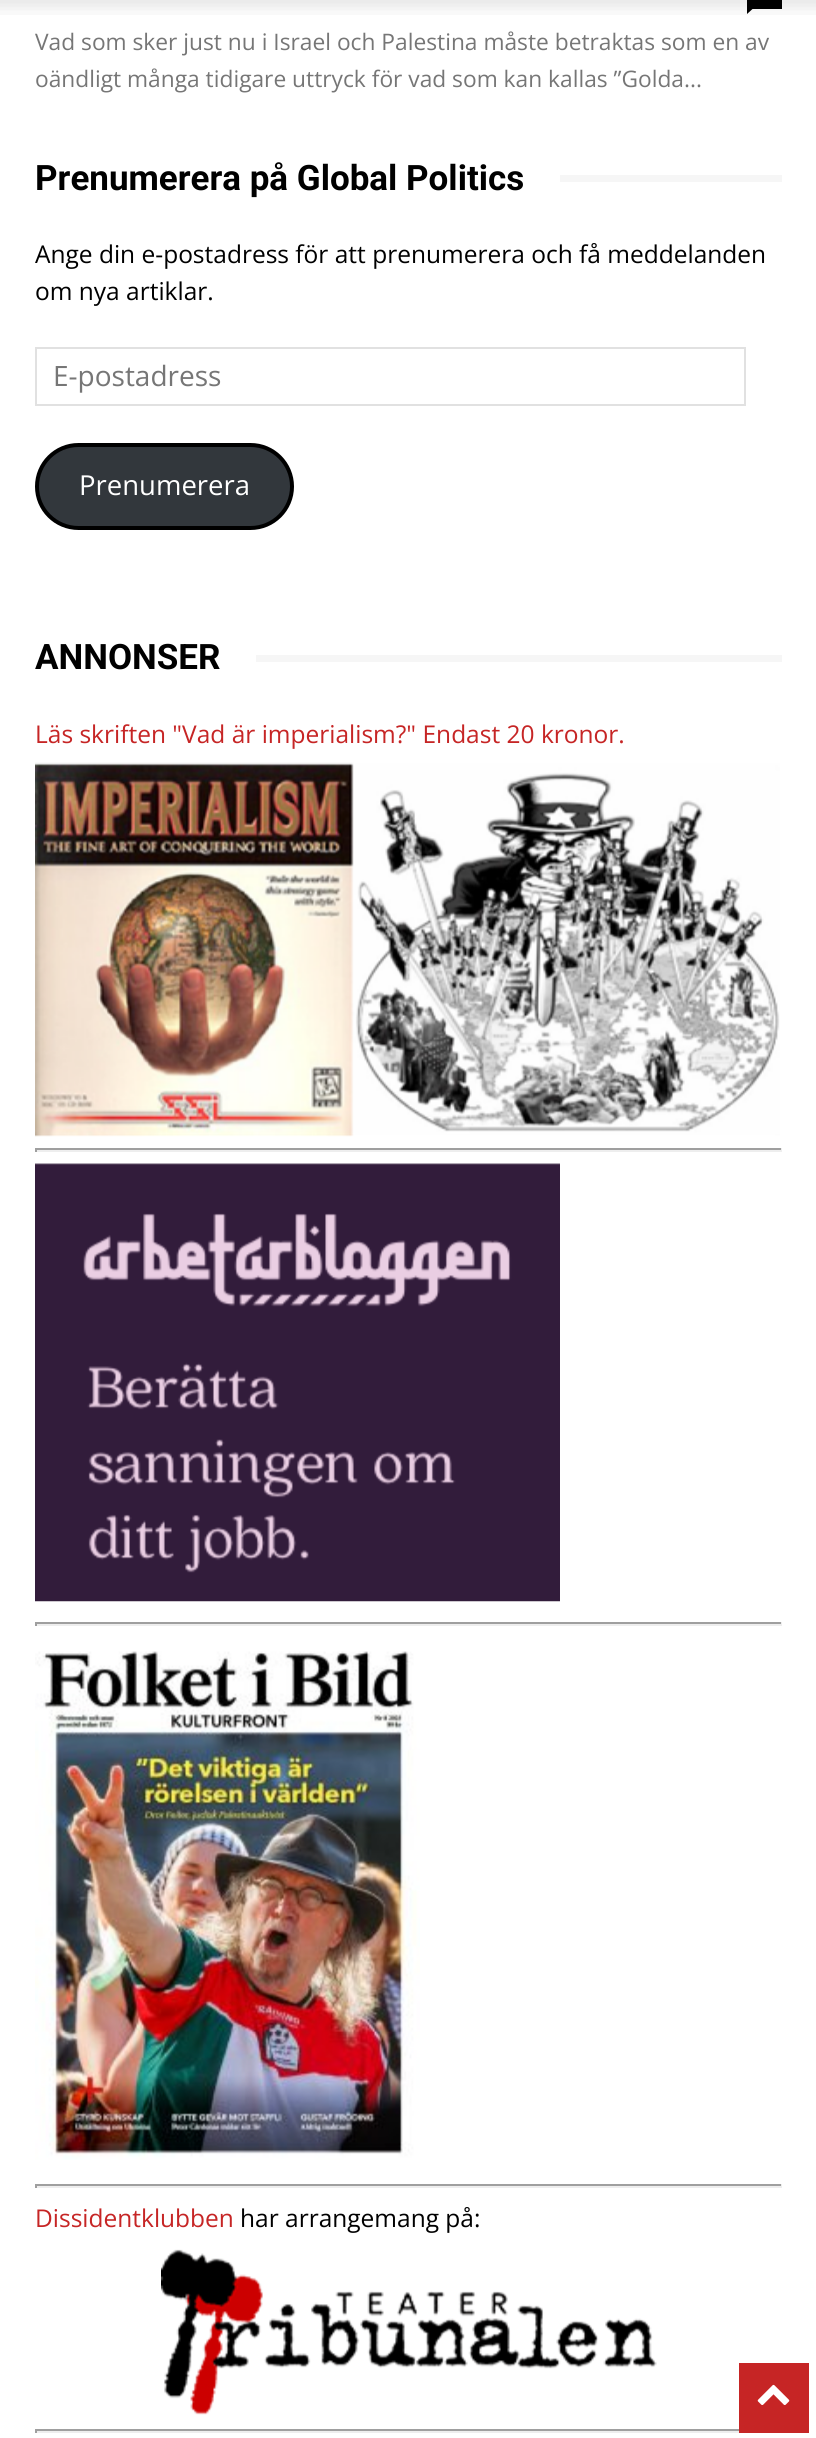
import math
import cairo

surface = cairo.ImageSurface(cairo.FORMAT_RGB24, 816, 2438)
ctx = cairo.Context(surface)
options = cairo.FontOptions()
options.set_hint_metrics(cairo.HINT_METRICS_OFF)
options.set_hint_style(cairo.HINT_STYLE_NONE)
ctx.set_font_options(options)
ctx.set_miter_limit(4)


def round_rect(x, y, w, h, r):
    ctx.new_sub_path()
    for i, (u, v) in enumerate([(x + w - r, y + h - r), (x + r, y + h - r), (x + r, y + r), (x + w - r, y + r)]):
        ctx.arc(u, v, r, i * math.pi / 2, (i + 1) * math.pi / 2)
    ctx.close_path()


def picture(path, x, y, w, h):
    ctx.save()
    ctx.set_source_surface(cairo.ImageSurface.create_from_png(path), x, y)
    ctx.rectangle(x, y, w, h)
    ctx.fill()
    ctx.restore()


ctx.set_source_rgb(1, 1, 1)
ctx.paint()
ctx.set_source_rgb(0, 0, 0)
ctx.rectangle(747, 0, 35, 9)
ctx.fill()
ctx.new_path()
ctx.move_to(747, 9)
ctx.line_to(752.5, 9)
ctx.line_to(747, 14)
ctx.close_path()
ctx.fill()
picture("img1.png", 0, 0, 816, 15)
ctx.select_font_face("Open Sans")
ctx.set_font_size(22.75)
ctx.set_source_rgb(0.463, 0.463, 0.463)
ctx.move_to(35, 50)
ctx.show_text("Vad som sker just nu i Israel och Palestina måste betraktas som en av")
ctx.move_to(35, 87)
ctx.show_text("oändligt många tidigare uttryck för vad som kan kallas ”Golda...")
ctx.select_font_face("Roboto", cairo.FONT_SLANT_NORMAL, cairo.FONT_WEIGHT_BOLD)
ctx.set_font_size(35)
ctx.set_source_rgb(0, 0, 0)
ctx.move_to(35, 190)
ctx.show_text("Prenumerera på Global Politics")
ctx.set_source_rgb(0.961, 0.961, 0.961)
ctx.rectangle(560, 175, 222, 7)
ctx.fill()
ctx.select_font_face("Open Sans")
ctx.set_font_size(24.5)
ctx.set_source_rgb(0, 0, 0)
ctx.move_to(35, 263)
ctx.show_text("Ange din e-postadress för att prenumerera och få meddelanden")
ctx.move_to(35, 300)
ctx.show_text("om nya artiklar.")
ctx.rectangle(36, 348, 709, 57)
ctx.set_source_rgb(0.882, 0.882, 0.882)
ctx.stroke()
ctx.set_font_size(28)
ctx.set_source_rgb(0.463, 0.463, 0.463)
ctx.move_to(53, 386)
ctx.show_text("E-postadress")
ctx.set_source_rgb(0.196, 0.216, 0.235)
round_rect(37, 445, 255, 83, 41.5)
ctx.fill_preserve()
ctx.set_source_rgb(0, 0, 0)
ctx.set_line_width(4)
ctx.stroke()
ctx.set_font_size(27.5)
ctx.set_source_rgb(1, 1, 1)
ctx.move_to(79, 495)
ctx.show_text("Prenumerera")
ctx.select_font_face("Roboto", cairo.FONT_SLANT_NORMAL, cairo.FONT_WEIGHT_BOLD)
ctx.set_font_size(35)
ctx.set_source_rgb(0, 0, 0)
ctx.move_to(35, 669)
ctx.show_text("ANNONSER")
ctx.set_source_rgb(0.961, 0.961, 0.961)
ctx.rectangle(256, 655, 526, 7)
ctx.fill()
ctx.select_font_face("Open Sans")
ctx.set_font_size(24.5)
ctx.set_source_rgb(0.776, 0.145, 0.145)
ctx.move_to(35, 743)
ctx.show_text("Läs skriften \"Vad är imperialism?\" Endast 20 kronor.")
picture("img2.png", 35, 762, 745, 375)
ctx.set_source_rgb(0.624, 0.624, 0.624)
ctx.rectangle(35, 1148, 747, 2)
ctx.fill()
ctx.set_source_rgb(0.933, 0.933, 0.933)
ctx.rectangle(781, 1148, 1, 4)
ctx.fill()
ctx.rectangle(35, 1150, 747, 2)
ctx.fill()
ctx.set_source_rgb(0.624, 0.624, 0.624)
ctx.rectangle(35, 1148, 2, 4)
ctx.fill()
picture("img3.png", 35, 1163, 525, 439)
ctx.rectangle(35, 1622, 747, 2)
ctx.fill()
ctx.set_source_rgb(0.933, 0.933, 0.933)
ctx.rectangle(781, 1622, 1, 4)
ctx.fill()
ctx.rectangle(35, 1624, 747, 2)
ctx.fill()
ctx.set_source_rgb(0.624, 0.624, 0.624)
ctx.rectangle(35, 1622, 2, 4)
ctx.fill()
picture("img4.png", 35, 1651, 385, 509)
ctx.rectangle(35, 2184, 747, 2)
ctx.fill()
ctx.set_source_rgb(0.933, 0.933, 0.933)
ctx.rectangle(781, 2184, 1, 4)
ctx.fill()
ctx.rectangle(35, 2186, 747, 2)
ctx.fill()
ctx.set_source_rgb(0.624, 0.624, 0.624)
ctx.rectangle(35, 2184, 2, 4)
ctx.fill()
ctx.set_source_rgb(0.776, 0.145, 0.145)
ctx.move_to(35, 2227)
ctx.show_text("Dissidentklubben")
ctx.set_source_rgb(0, 0, 0)
ctx.move_to(240, 2227)
ctx.show_text("har arrangemang på:")
picture("img5.png", 161, 2249, 496, 166)
ctx.set_source_rgb(0.624, 0.624, 0.624)
ctx.rectangle(35, 2429, 704, 2)
ctx.fill()
ctx.set_source_rgb(0.933, 0.933, 0.933)
ctx.rectangle(35, 2431, 704, 2)
ctx.fill()
ctx.set_source_rgb(0.624, 0.624, 0.624)
ctx.rectangle(35, 2429, 2, 4)
ctx.fill()
ctx.set_source_rgb(0.776, 0.145, 0.145)
ctx.rectangle(739, 2363, 70, 70)
ctx.fill()
picture("img6.png", 757, 2384, 33, 21)
surface.write_to_png("page.png")
